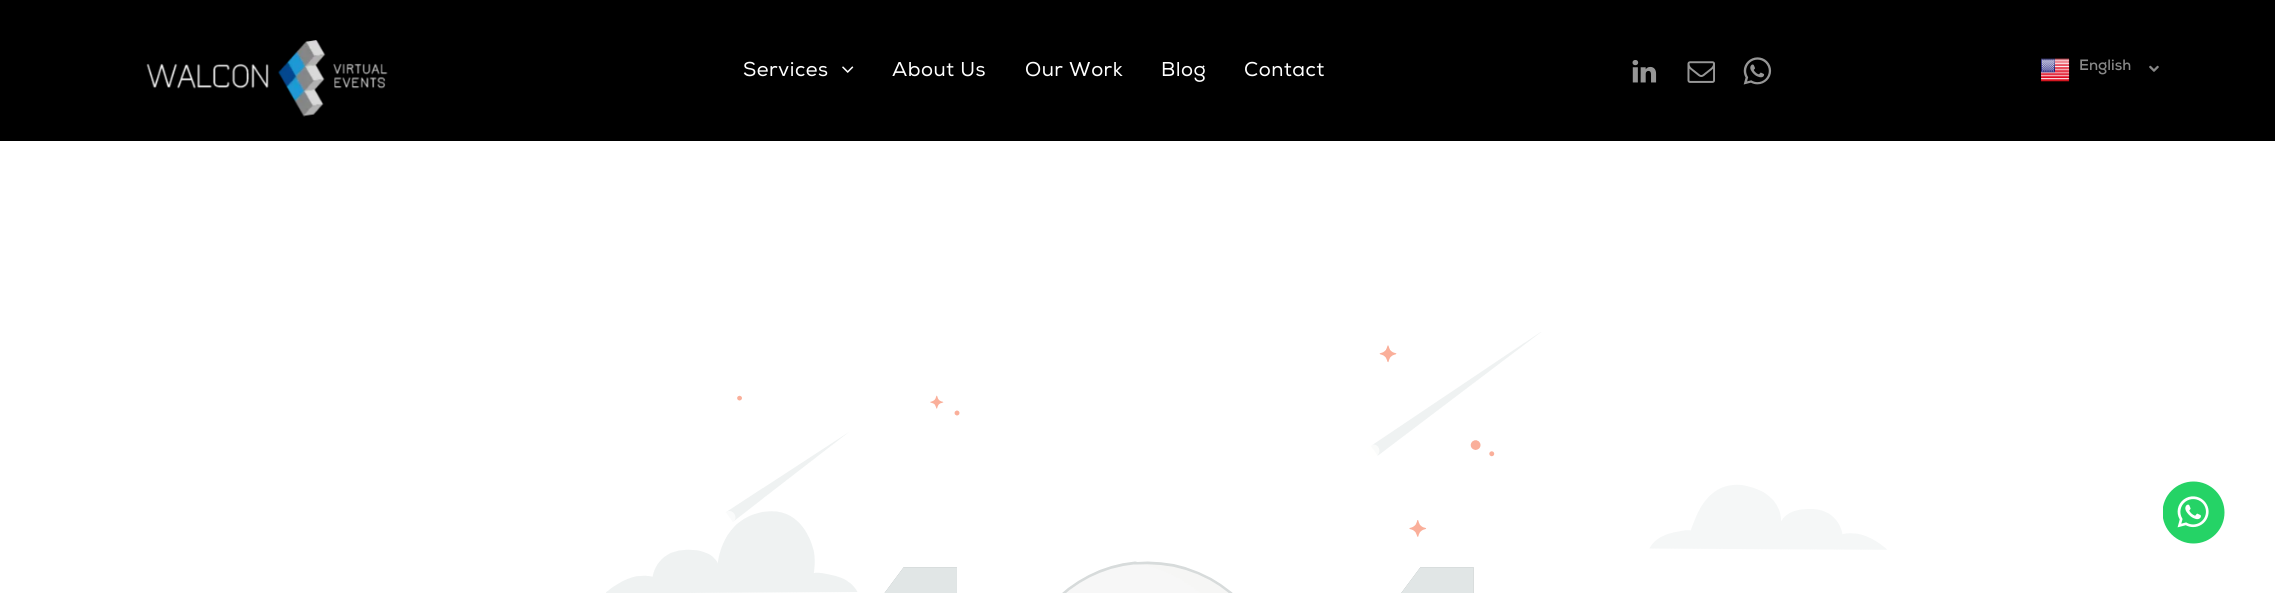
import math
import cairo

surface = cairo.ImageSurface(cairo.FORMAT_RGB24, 2275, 593)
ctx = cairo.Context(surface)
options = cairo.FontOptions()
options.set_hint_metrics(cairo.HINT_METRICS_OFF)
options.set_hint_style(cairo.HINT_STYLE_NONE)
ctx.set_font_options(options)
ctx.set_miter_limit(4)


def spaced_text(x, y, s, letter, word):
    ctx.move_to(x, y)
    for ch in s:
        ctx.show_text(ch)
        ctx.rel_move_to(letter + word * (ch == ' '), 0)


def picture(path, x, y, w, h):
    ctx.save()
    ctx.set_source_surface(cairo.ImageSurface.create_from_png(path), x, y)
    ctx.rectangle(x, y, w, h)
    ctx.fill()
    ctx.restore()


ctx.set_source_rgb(1, 1, 1)
ctx.paint()
ctx.set_source_rgb(0, 0, 0)
ctx.rectangle(0, 0, 2275, 141)
ctx.fill()
picture("img1.png", 146, 40, 242, 77)
ctx.select_font_face("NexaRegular")
ctx.set_font_size(20)
ctx.set_source_rgb(1, 1, 1)
spaced_text(743, 76, "Services", 0.5, 0)
picture("img2.png", 842, 66, 12, 7)
spaced_text(892, 76, "About Us", 0.5, 0)
spaced_text(1025, 76, "Our Work", 0.5, 0)
spaced_text(1161, 76, "Blog", 0.5, 0)
spaced_text(1244, 76, "Contact", 0.5, 0)
picture("img3.png", 1632, 60, 25, 23)
picture("img4.png", 1687, 61, 28, 22)
picture("img5.png", 1743, 57, 29, 28)
picture("img6.png", 2041, 58, 29, 24)
ctx.select_font_face("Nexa", cairo.FONT_SLANT_NORMAL, cairo.FONT_WEIGHT_BOLD)
ctx.set_font_size(15)
ctx.set_source_rgb(0.533, 0.533, 0.533)
ctx.move_to(2079, 70)
ctx.show_text("English")
picture("img7.png", 2149, 65, 10, 7)
picture("img8.png", 606, 332, 1281, 261)
picture("img9.png", 2163, 481, 62, 63)
surface.write_to_png("page.png")
